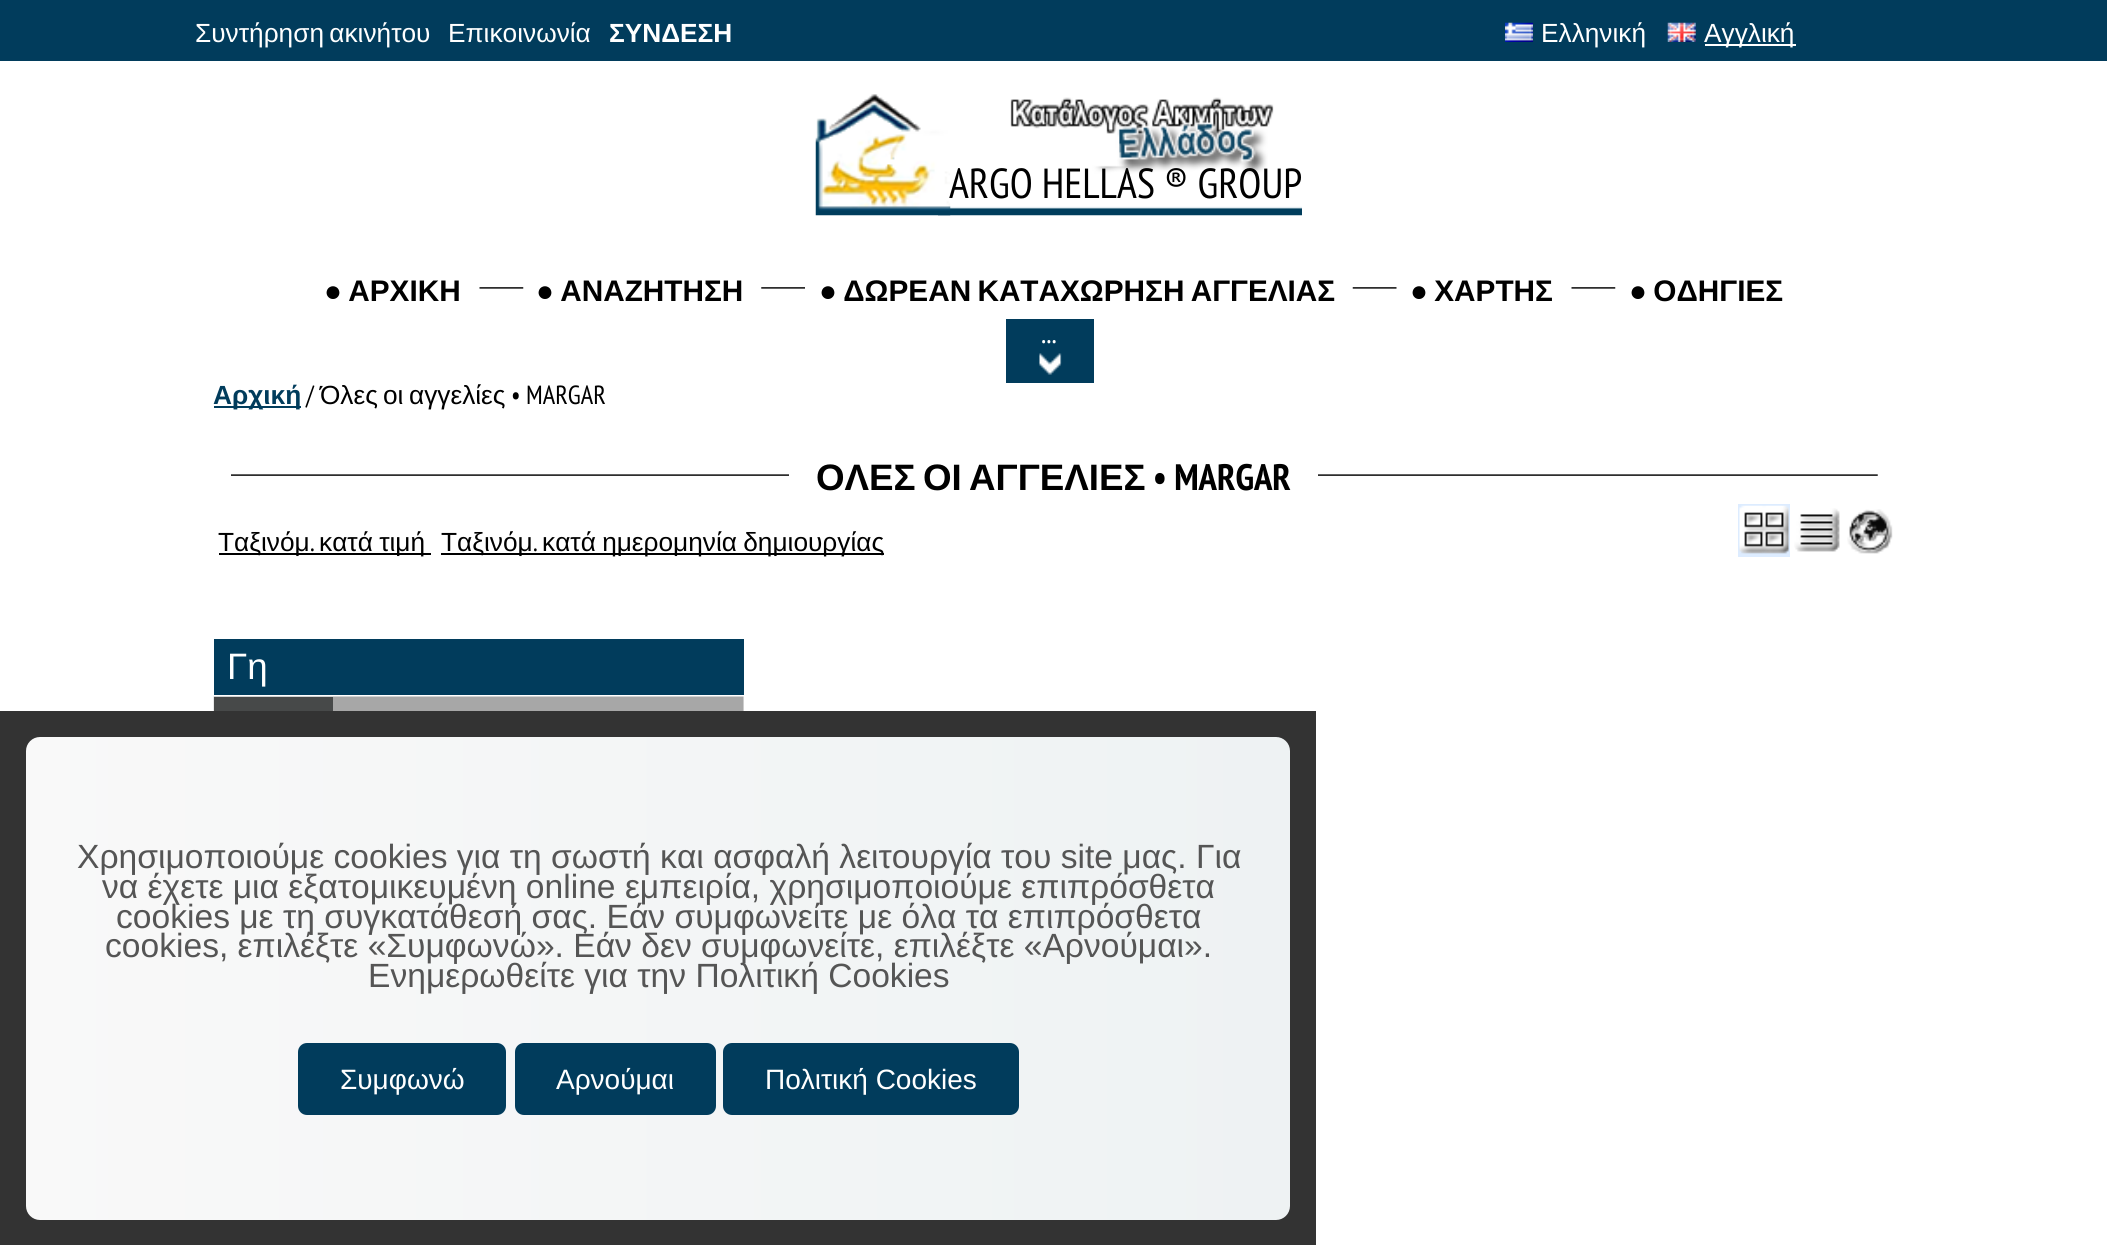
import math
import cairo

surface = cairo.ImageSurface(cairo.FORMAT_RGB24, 2107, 1245)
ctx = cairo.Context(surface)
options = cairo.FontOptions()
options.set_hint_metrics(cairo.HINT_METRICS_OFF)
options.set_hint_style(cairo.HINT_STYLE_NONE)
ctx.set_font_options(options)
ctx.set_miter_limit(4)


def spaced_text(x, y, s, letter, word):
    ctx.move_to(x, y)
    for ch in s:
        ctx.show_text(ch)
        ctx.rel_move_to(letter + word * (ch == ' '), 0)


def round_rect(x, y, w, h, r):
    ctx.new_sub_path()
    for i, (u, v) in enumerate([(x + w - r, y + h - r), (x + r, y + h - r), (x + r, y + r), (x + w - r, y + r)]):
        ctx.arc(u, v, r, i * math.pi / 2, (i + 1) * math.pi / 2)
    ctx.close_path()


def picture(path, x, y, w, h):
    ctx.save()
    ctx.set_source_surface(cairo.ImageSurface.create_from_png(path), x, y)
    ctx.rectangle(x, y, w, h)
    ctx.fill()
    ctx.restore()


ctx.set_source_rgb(1, 1, 1)
ctx.paint()
ctx.set_source_rgb(0.004, 0.235, 0.361)
ctx.rectangle(0, 0, 2107, 61)
ctx.fill()
ctx.select_font_face("Liberation Sans")
ctx.set_font_size(26.25)
ctx.set_source_rgb(1, 1, 1)
spaced_text(195, 42, "Συντήρηση ακινήτου", 0, -2)
ctx.move_to(448, 42)
ctx.show_text("Επικοινωνία")
ctx.select_font_face("Liberation Sans", cairo.FONT_SLANT_NORMAL, cairo.FONT_WEIGHT_BOLD)
ctx.move_to(609, 42)
ctx.show_text("ΣΥΝΔΕΣΗ")
picture("img1.png", 1505, 22, 28, 20)
ctx.select_font_face("Liberation Sans")
ctx.move_to(1541, 42)
ctx.show_text("Ελληνική")
picture("img2.png", 1667, 22, 29, 20)
ctx.rectangle(1705, 44, 91, 2)
ctx.fill()
ctx.move_to(1704, 42)
ctx.show_text("Αγγλική")
picture("img3.png", 938, 97, 364, 119)
picture("img4.png", 815, 94, 136, 122)
ctx.select_font_face("PT Sans Narrow")
ctx.set_font_size(42)
ctx.set_source_rgb(0, 0, 0)
ctx.move_to(949, 198)
ctx.show_text("ARGO HELLAS ® GROUP")
ctx.select_font_face("Liberation Sans", cairo.FONT_SLANT_NORMAL, cairo.FONT_WEIGHT_BOLD)
ctx.set_font_size(29.75)
spaced_text(324, 301, "● ΑΡΧΙΚΗ", 0, -2)
picture("img5.png", 479, 287, 45, 2)
spaced_text(536, 301, "● ΑΝΑΖΗΤΗΣΗ", 0, -2)
picture("img6.png", 761, 287, 44, 2)
spaced_text(819, 301, "● ΔΩΡΕΑΝ ΚΑΤΑΧΩΡΗΣΗ ΑΓΓΕΛΙΑΣ", 0, -2)
picture("img7.png", 1352, 287, 45, 2)
spaced_text(1410, 301, "● ΧΑΡΤΗΣ", 0, -2)
picture("img5.png", 1571, 287, 45, 2)
spaced_text(1629, 301, "● ΟΔΗΓΙΕΣ", 0, -2)
ctx.set_source_rgb(0.004, 0.235, 0.361)
ctx.rectangle(1006, 319, 88, 64)
ctx.fill()
picture("img8.png", 1039, 353, 23, 22)
ctx.select_font_face("PT Sans Narrow")
ctx.set_source_rgb(1, 1, 1)
ctx.move_to(1041, 343)
ctx.show_text("...")
ctx.set_source_rgb(0.004, 0.235, 0.361)
ctx.rectangle(214, 406, 87, 2)
ctx.fill()
ctx.select_font_face("Liberation Sans", cairo.FONT_SLANT_NORMAL, cairo.FONT_WEIGHT_BOLD)
ctx.set_font_size(26.25)
ctx.move_to(213, 404)
ctx.show_text("Αρχική")
ctx.select_font_face("PT Sans Narrow")
ctx.set_source_rgb(0, 0, 0)
ctx.move_to(306, 404)
ctx.show_text("/")
ctx.select_font_face("Liberation Sans")
ctx.move_to(320, 404)
ctx.show_text("Όλες")
ctx.move_to(383, 404)
ctx.show_text("οι")
ctx.move_to(409, 404)
ctx.show_text("αγγελίες")
ctx.select_font_face("PT Sans Narrow")
ctx.move_to(511, 404)
ctx.show_text("• MARGAR")
picture("img9.png", 231, 474, 1647, 2)
ctx.set_source_rgb(1, 1, 1)
ctx.rectangle(789, 474, 529, 2)
ctx.fill()
ctx.select_font_face("Liberation Sans", cairo.FONT_SLANT_NORMAL, cairo.FONT_WEIGHT_BOLD)
ctx.set_font_size(36.75)
ctx.set_source_rgb(0, 0, 0)
ctx.move_to(816, 490)
ctx.show_text("ΟΛΕΣ")
ctx.move_to(923, 490)
ctx.show_text("ΟΙ")
ctx.move_to(969, 490)
ctx.show_text("ΑΓΓΕΛΙΕΣ")
ctx.select_font_face("PT Sans Narrow", cairo.FONT_SLANT_NORMAL, cairo.FONT_WEIGHT_BOLD)
ctx.move_to(1153, 490)
ctx.show_text("• MARGAR")
ctx.rectangle(219, 553, 212, 2)
ctx.fill()
ctx.select_font_face("Liberation Sans")
ctx.set_font_size(26.25)
ctx.move_to(218, 551)
ctx.show_text("Ταξινόμ")
ctx.select_font_face("PT Sans Narrow")
ctx.move_to(310, 551)
ctx.show_text(".")
ctx.select_font_face("Liberation Sans")
spaced_text(319, 551, "κατά τιμή", 0, -1)
ctx.rectangle(441, 553, 443, 2)
ctx.fill()
ctx.move_to(441, 551)
ctx.show_text("Ταξινόμ")
ctx.select_font_face("PT Sans Narrow")
ctx.move_to(533, 551)
ctx.show_text(".")
ctx.select_font_face("Liberation Sans")
spaced_text(542, 551, "κατά ημερομηνία δημιουργίας", 0, -1)
ctx.set_source_rgb(0.867, 0.922, 1)
ctx.rectangle(1738, 504, 52, 53)
ctx.fill()
picture("img10.png", 1739, 505, 50, 49)
picture("img11.png", 1794, 508, 46, 44)
picture("img12.png", 1847, 509, 46, 45)
ctx.set_source_rgb(0.004, 0.235, 0.361)
ctx.rectangle(214, 639, 530, 56)
ctx.fill()
ctx.set_font_size(36.75)
ctx.set_source_rgb(1, 1, 1)
ctx.move_to(227, 679)
ctx.show_text("Γη")
picture("img13.png", 213, 696, 531, 15)
ctx.set_source_rgb(0.278, 0.286, 0.286)
ctx.rectangle(214, 697, 119, 14)
ctx.fill()
ctx.set_source_rgb(0.2, 0.2, 0.2)
ctx.rectangle(0, 711, 1316, 534)
ctx.fill()
gradient = cairo.LinearGradient(26, 978, 1290, 978)
gradient.add_color_stop_rgba(0, 0.976, 0.976, 0.976, 1)
gradient.add_color_stop_rgba(1, 0.933, 0.949, 0.953, 1)
ctx.set_source(gradient)
round_rect(26, 737, 1264, 483, 14)
ctx.fill()
ctx.set_font_size(33.6)
ctx.set_source_rgb(0.333, 0.333, 0.333)
ctx.move_to(77, 868)
ctx.show_text("Χρησιμοποιούμε cookies για τη σωστή και ασφαλή λειτουργία του site μας. Για")
ctx.move_to(102, 898)
ctx.show_text("να έχετε μια εξατομικευμένη online εμπειρία, χρησιμοποιούμε επιπρόσθετα")
ctx.move_to(116, 928)
ctx.show_text("cookies με τη συγκατάθεσή σας. Εάν συμφωνείτε με όλα τα επιπρόσθετα")
ctx.move_to(105, 957)
ctx.show_text("cookies, επιλέξτε «Συμφωνώ». Εάν δεν συμφωνείτε, επιλέξτε «Αρνούμαι».")
ctx.move_to(368, 987)
ctx.show_text("Ενημερωθείτε για την Πολιτική Cookies")
ctx.set_source_rgb(0.004, 0.235, 0.361)
round_rect(298, 1043, 208, 72, 9)
ctx.fill()
ctx.set_font_size(28)
ctx.set_source_rgb(1, 1, 1)
ctx.move_to(340, 1089)
ctx.show_text("Συμφωνώ")
ctx.set_source_rgb(0.004, 0.235, 0.361)
round_rect(515, 1043, 201, 72, 9)
ctx.fill()
ctx.set_source_rgb(1, 1, 1)
ctx.move_to(556, 1089)
ctx.show_text("Αρνούμαι")
ctx.set_source_rgb(0.004, 0.235, 0.361)
round_rect(723, 1043, 296, 72, 9)
ctx.fill()
ctx.set_source_rgb(1, 1, 1)
ctx.move_to(765, 1089)
ctx.show_text("Πολιτική Cookies")
surface.write_to_png("page.png")
